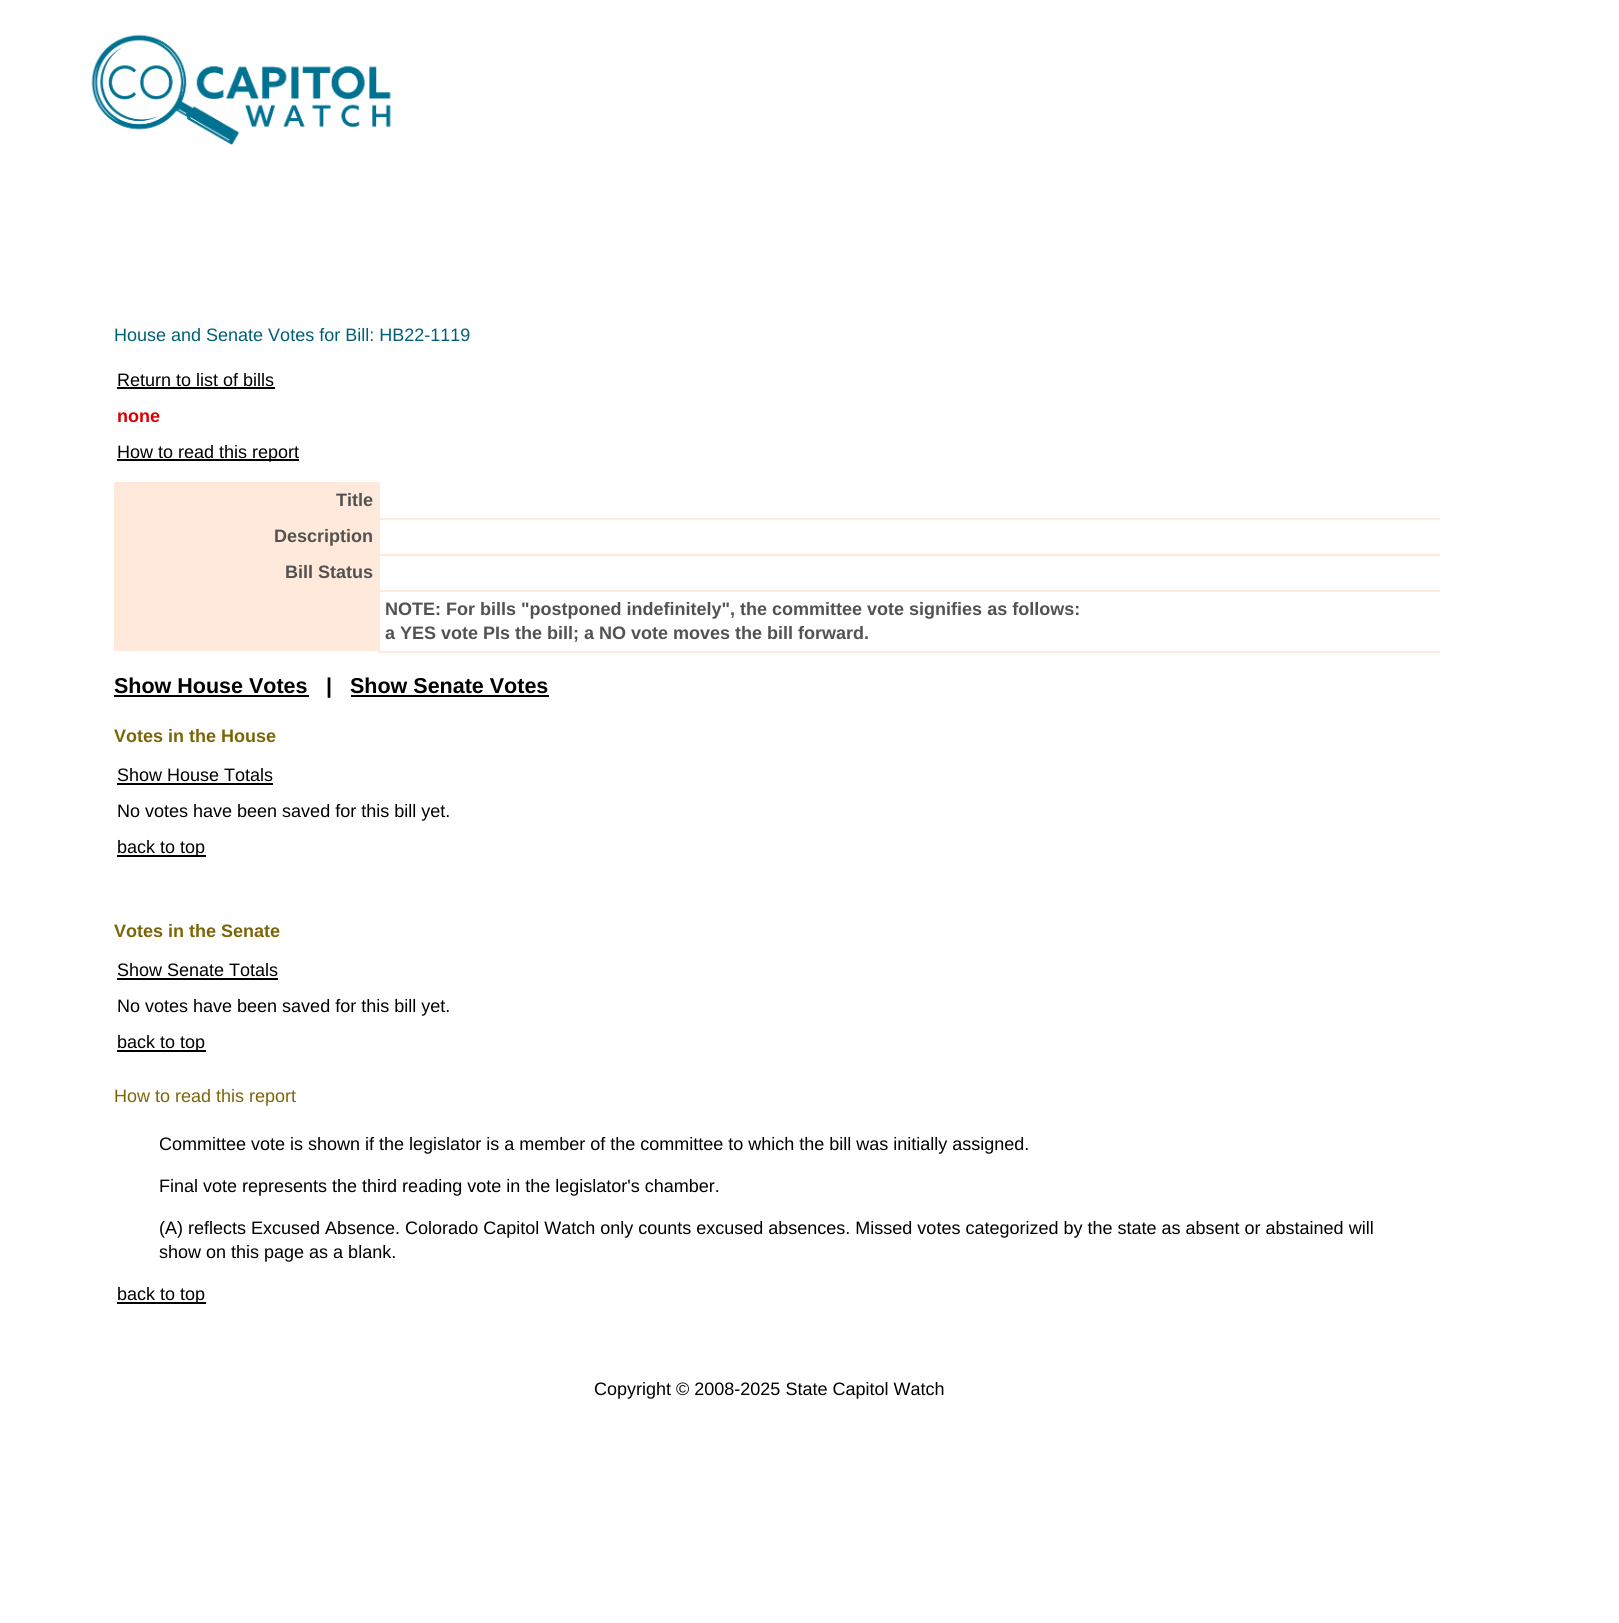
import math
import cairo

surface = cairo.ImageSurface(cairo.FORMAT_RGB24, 1619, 1623)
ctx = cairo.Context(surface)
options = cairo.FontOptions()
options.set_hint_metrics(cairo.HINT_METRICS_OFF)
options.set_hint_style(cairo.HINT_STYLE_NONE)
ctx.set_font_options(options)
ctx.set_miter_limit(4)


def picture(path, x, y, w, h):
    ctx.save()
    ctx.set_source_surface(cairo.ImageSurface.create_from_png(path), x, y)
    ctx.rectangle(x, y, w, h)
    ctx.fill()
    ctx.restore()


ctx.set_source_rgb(1, 1, 1)
ctx.paint()
picture("img1.png", 91, 34, 300, 111)
ctx.select_font_face("Liberation Sans")
ctx.set_font_size(18)
ctx.set_source_rgb(0, 0.369, 0.471)
ctx.move_to(114, 341)
ctx.show_text("House and Senate Votes for Bill: HB22-1119")
ctx.set_source_rgb(0, 0, 0)
ctx.move_to(117, 386)
ctx.show_text("Return to list of bills")
ctx.rectangle(117, 387, 158, 2)
ctx.fill()
ctx.select_font_face("Liberation Sans", cairo.FONT_SLANT_NORMAL, cairo.FONT_WEIGHT_BOLD)
ctx.set_source_rgb(0.863, 0, 0.012)
ctx.move_to(117, 422)
ctx.show_text("none")
ctx.set_source_rgb(0, 0, 0)
ctx.rectangle(117, 459, 182, 2)
ctx.fill()
ctx.select_font_face("Liberation Sans")
ctx.move_to(117, 458)
ctx.show_text("How to read this report")
ctx.set_source_rgb(1, 0.914, 0.859)
ctx.rectangle(114, 482, 266, 169)
ctx.fill()
ctx.select_font_face("Liberation Sans", cairo.FONT_SLANT_NORMAL, cairo.FONT_WEIGHT_BOLD)
ctx.set_source_rgb(0.322, 0.322, 0.322)
ctx.move_to(336, 506)
ctx.show_text("Title")
ctx.set_source_rgb(1, 0.914, 0.859)
ctx.rectangle(378, 518, 1062, 2)
ctx.fill()
ctx.set_source_rgb(0.322, 0.322, 0.322)
ctx.move_to(274, 542)
ctx.show_text("Description")
ctx.set_source_rgb(1, 0.914, 0.859)
ctx.rectangle(378, 554, 1062, 2)
ctx.fill()
ctx.set_source_rgb(0.322, 0.322, 0.322)
ctx.move_to(285, 578)
ctx.show_text("Bill Status")
ctx.set_source_rgb(1, 0.914, 0.859)
ctx.rectangle(378, 590, 1062, 2)
ctx.fill()
ctx.rectangle(378, 651, 1062, 2)
ctx.fill()
ctx.set_source_rgb(0.322, 0.322, 0.322)
ctx.move_to(385, 615)
ctx.show_text("NOTE: For bills \"postponed indefinitely\", the committee vote signifies as follows:")
ctx.move_to(385, 639)
ctx.show_text("a YES vote PIs the bill; a NO vote moves the bill forward.")
ctx.set_font_size(21.5)
ctx.set_source_rgb(0, 0, 0)
ctx.move_to(114, 693)
ctx.show_text("Show House Votes")
ctx.rectangle(114, 695, 195, 2)
ctx.fill()
ctx.move_to(326, 693)
ctx.show_text("|")
ctx.move_to(350, 693)
ctx.show_text("Show Senate Votes")
ctx.rectangle(351, 695, 198, 2)
ctx.fill()
ctx.set_font_size(18)
ctx.set_source_rgb(0.486, 0.396, 0.031)
ctx.move_to(114, 742)
ctx.show_text("Votes in the House")
ctx.select_font_face("Liberation Sans")
ctx.set_source_rgb(0, 0, 0)
ctx.move_to(117, 781)
ctx.show_text("Show House Totals")
ctx.rectangle(117, 783, 156, 2)
ctx.fill()
ctx.move_to(117, 817)
ctx.show_text("No votes have been saved for this bill yet.")
ctx.rectangle(117, 855, 89, 2)
ctx.fill()
ctx.move_to(117, 853)
ctx.show_text("back to top")
ctx.select_font_face("Liberation Sans", cairo.FONT_SLANT_NORMAL, cairo.FONT_WEIGHT_BOLD)
ctx.set_source_rgb(0.486, 0.396, 0.031)
ctx.move_to(114, 937)
ctx.show_text("Votes in the Senate")
ctx.select_font_face("Liberation Sans")
ctx.set_source_rgb(0, 0, 0)
ctx.move_to(117, 976)
ctx.show_text("Show Senate Totals")
ctx.rectangle(117, 978, 161, 2)
ctx.fill()
ctx.move_to(117, 1012)
ctx.show_text("No votes have been saved for this bill yet.")
ctx.rectangle(117, 1050, 89, 2)
ctx.fill()
ctx.move_to(117, 1048)
ctx.show_text("back to top")
ctx.set_source_rgb(0.486, 0.396, 0.031)
ctx.move_to(114, 1102)
ctx.show_text("How to read this report")
ctx.set_source_rgb(0, 0, 0)
ctx.move_to(159, 1150)
ctx.show_text("Committee vote is shown if the legislator is a member of the committee to which the bill was initially assigned.")
ctx.move_to(159, 1192)
ctx.show_text("Final vote represents the third reading vote in the legislator's chamber.")
ctx.move_to(159, 1234)
ctx.show_text("(A) reflects Excused Absence. Colorado Capitol Watch only counts excused absences. Missed votes categorized by the state as absent or abstained will")
ctx.move_to(159, 1258)
ctx.show_text("show on this page as a blank.")
ctx.rectangle(117, 1302, 89, 2)
ctx.fill()
ctx.move_to(117, 1300)
ctx.show_text("back to top")
ctx.move_to(594, 1395)
ctx.show_text("Copyright © 2008-2025 State Capitol Watch")
surface.write_to_png("page.png")
